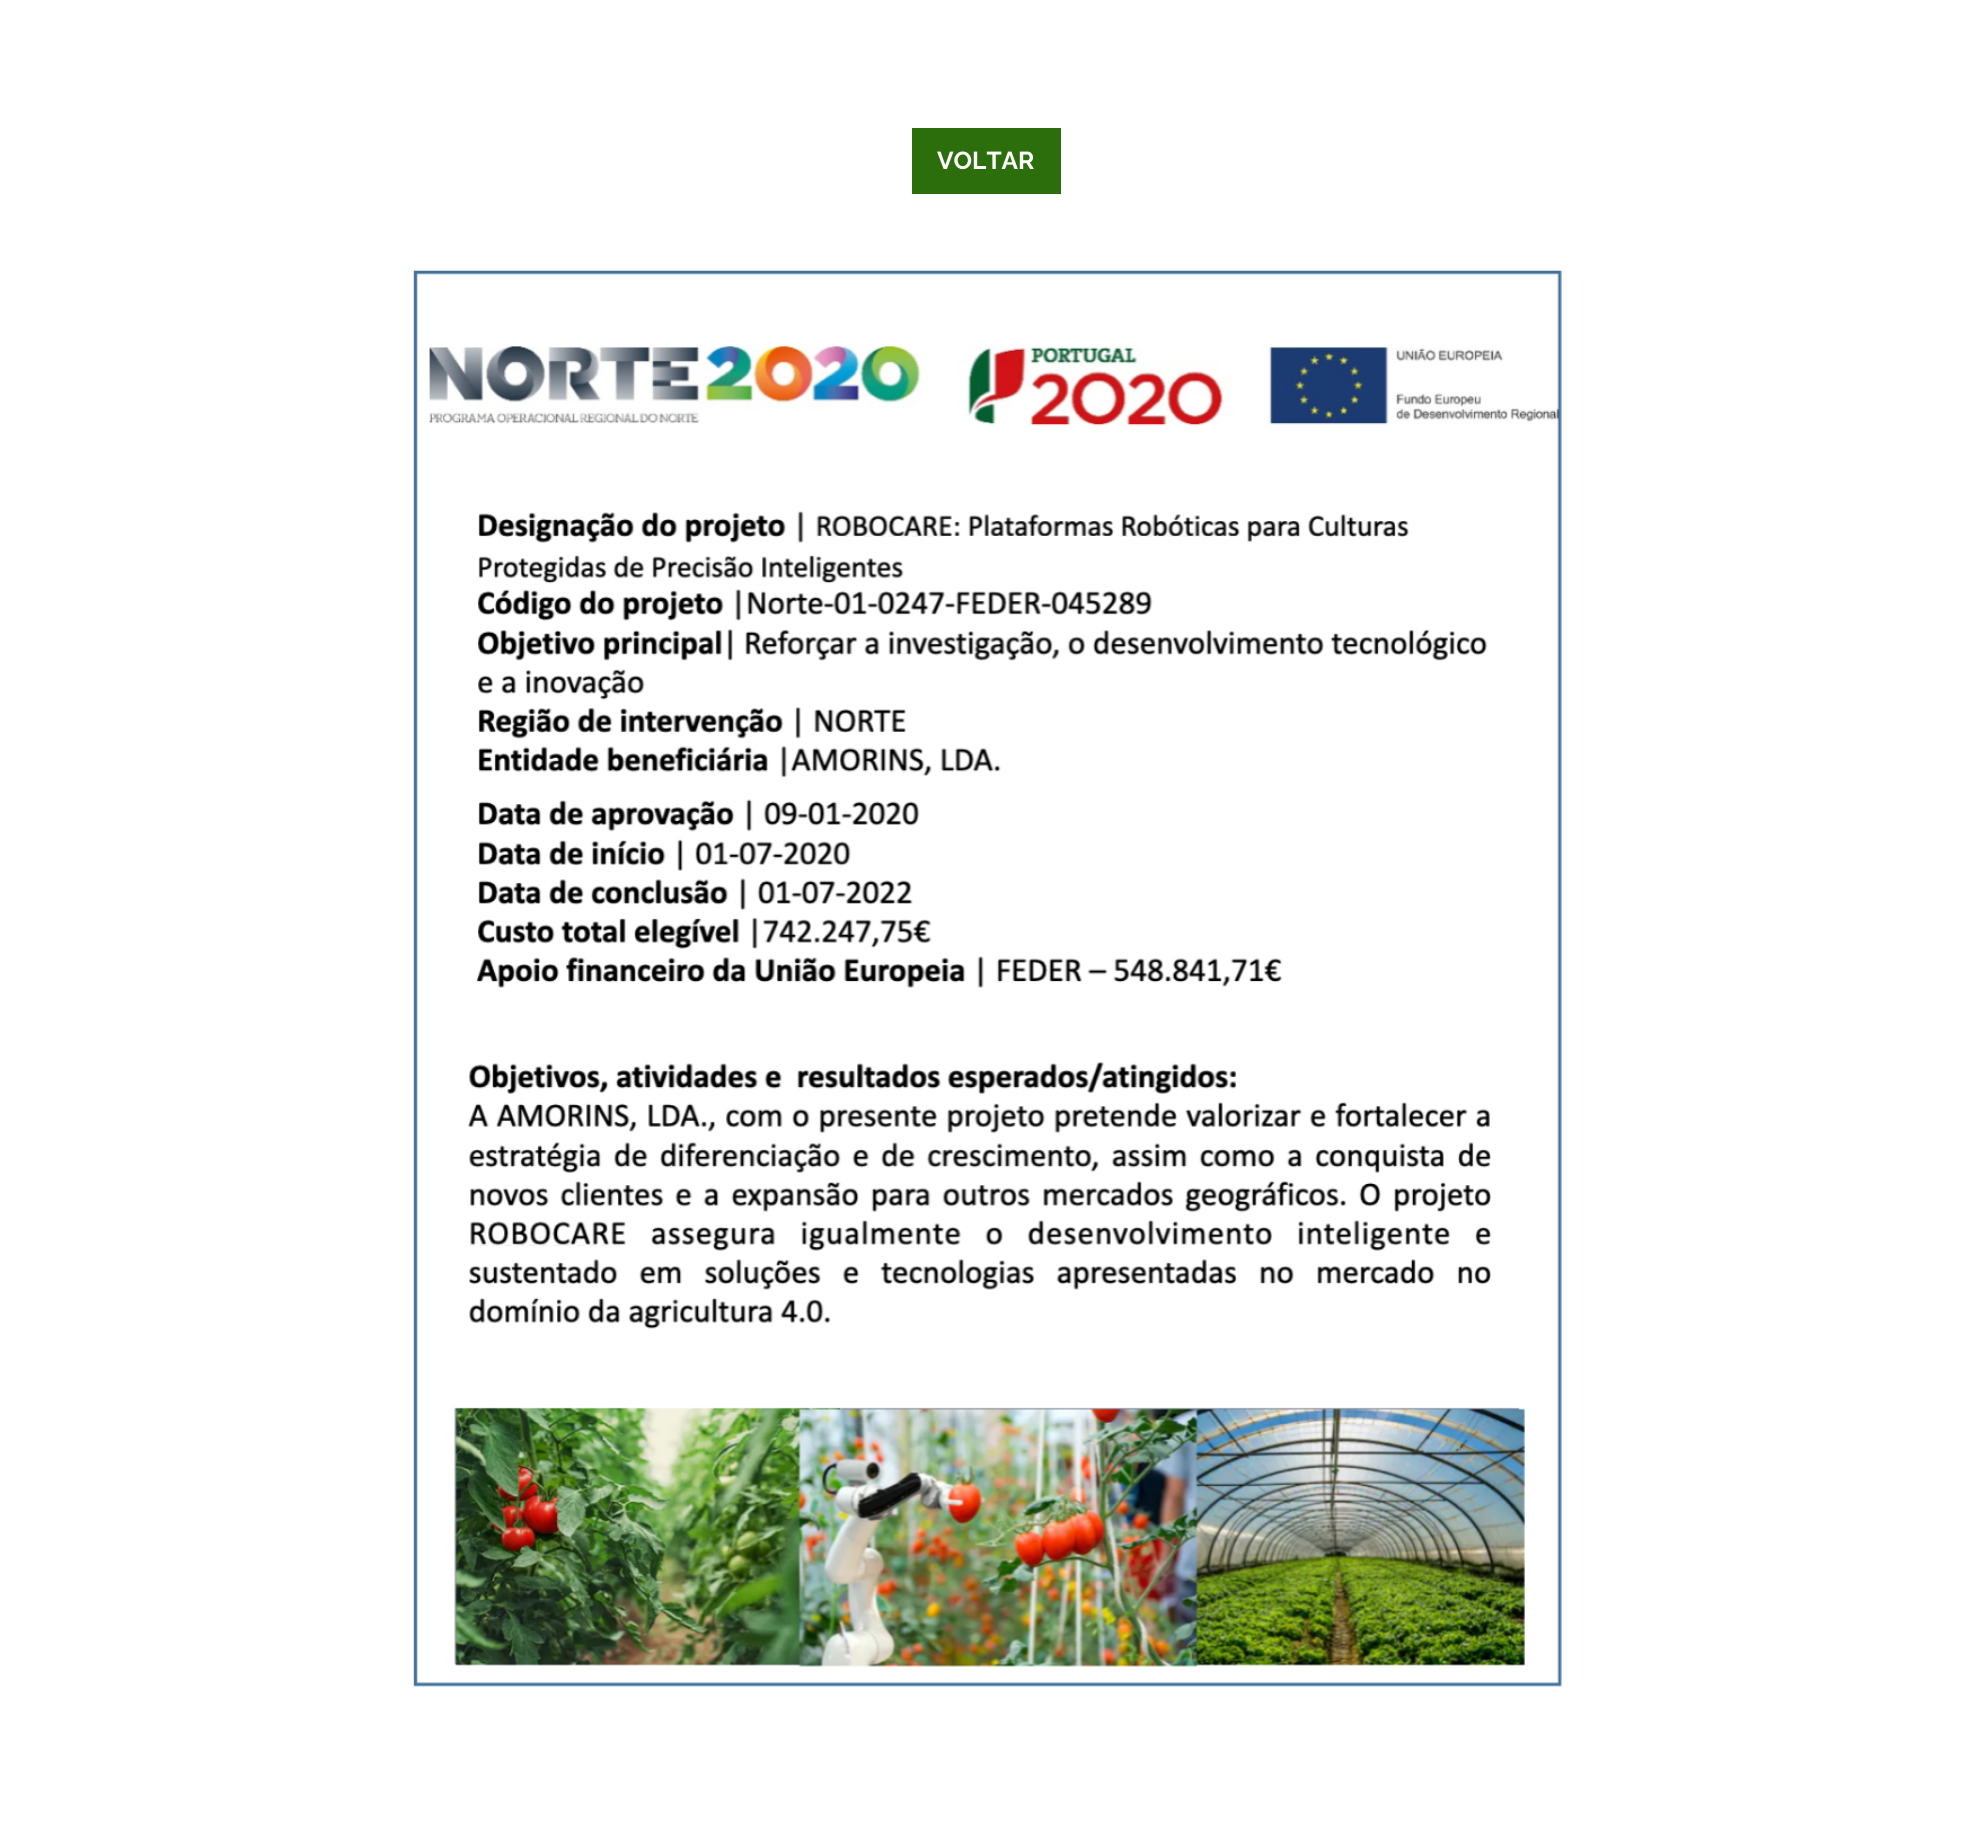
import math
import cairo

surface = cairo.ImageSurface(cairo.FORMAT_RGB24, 1972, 1839)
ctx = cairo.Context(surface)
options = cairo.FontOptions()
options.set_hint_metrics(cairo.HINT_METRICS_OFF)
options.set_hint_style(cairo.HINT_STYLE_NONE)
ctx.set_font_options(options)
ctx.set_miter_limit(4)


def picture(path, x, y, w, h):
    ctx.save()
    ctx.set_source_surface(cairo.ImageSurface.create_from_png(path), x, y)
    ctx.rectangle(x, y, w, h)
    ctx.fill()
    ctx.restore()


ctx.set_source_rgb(1, 1, 1)
ctx.paint()
ctx.set_source_rgb(0.173, 0.427, 0.047)
ctx.rectangle(912, 128, 149, 66)
ctx.fill()
ctx.select_font_face("Raleway", cairo.FONT_SLANT_NORMAL, cairo.FONT_WEIGHT_BOLD)
ctx.set_font_size(24.5)
ctx.set_source_rgb(1, 1, 1)
ctx.move_to(937, 169)
ctx.show_text("VOLTAR")
picture("img1.png", 413, 269, 1149, 1418)
surface.write_to_png("page.png")
